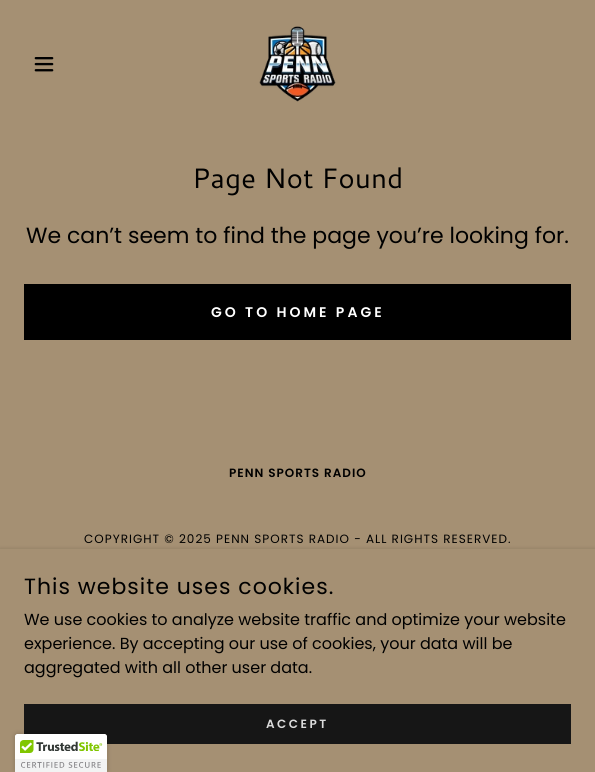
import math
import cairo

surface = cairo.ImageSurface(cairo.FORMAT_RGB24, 595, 772)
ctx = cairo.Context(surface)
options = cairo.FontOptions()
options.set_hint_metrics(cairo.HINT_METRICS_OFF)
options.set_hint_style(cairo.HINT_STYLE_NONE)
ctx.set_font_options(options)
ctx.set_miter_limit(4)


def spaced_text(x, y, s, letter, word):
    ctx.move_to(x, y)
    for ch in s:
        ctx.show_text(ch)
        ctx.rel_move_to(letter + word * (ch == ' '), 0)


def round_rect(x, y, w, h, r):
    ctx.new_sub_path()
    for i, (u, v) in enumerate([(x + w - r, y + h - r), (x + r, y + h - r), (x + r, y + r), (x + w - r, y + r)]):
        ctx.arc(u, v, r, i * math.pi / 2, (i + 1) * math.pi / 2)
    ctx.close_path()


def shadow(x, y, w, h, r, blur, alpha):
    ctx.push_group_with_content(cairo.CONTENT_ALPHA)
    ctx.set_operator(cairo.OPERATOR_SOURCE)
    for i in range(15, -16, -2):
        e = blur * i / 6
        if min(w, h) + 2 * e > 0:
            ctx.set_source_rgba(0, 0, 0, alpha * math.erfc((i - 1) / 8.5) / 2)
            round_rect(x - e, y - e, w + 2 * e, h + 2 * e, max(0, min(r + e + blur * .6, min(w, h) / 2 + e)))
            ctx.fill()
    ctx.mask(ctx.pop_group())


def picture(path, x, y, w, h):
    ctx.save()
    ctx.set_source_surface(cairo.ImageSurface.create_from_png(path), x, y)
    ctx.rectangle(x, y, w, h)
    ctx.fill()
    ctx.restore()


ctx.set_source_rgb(0.647, 0.565, 0.451)
ctx.paint()
picture("img1.png", 34, 57, 20, 15)
picture("img2.png", 259, 26, 77, 76)
ctx.select_font_face("Cantarell")
ctx.set_font_size(28)
ctx.set_source_rgb(0, 0, 0)
ctx.move_to(192, 188)
ctx.show_text("Page Not Found")
ctx.select_font_face("Poppins")
ctx.set_font_size(22)
ctx.move_to(26, 243)
ctx.show_text("We can’t seem to find the page you’re looking for.")
ctx.rectangle(24, 284, 547, 56)
ctx.fill()
ctx.select_font_face("Poppins SemiBold")
ctx.set_font_size(14)
ctx.set_source_rgb(1, 1, 1)
spaced_text(211, 317, "GO TO HOME PAGE", 3, 0)
ctx.set_font_size(12)
ctx.set_source_rgb(0, 0, 0)
spaced_text(229, 477, "PENN SPORTS RADIO", 1, 0)
ctx.select_font_face("Poppins")
spaced_text(84, 543, "COPYRIGHT © 2025 PENN SPORTS RADIO - ALL RIGHTS RESERVED.", 1, 0)
ctx.set_source_rgb(0, 0, 0)
shadow(0, 551, 595, 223, 0, 3, 0.3)
ctx.set_source_rgb(0.647, 0.565, 0.451)
ctx.rectangle(0, 549, 595, 223)
ctx.fill()
ctx.set_font_size(22)
ctx.set_source_rgb(0, 0, 0)
spaced_text(24, 594, "This website uses cookies.", 1, 0)
ctx.set_font_size(16)
ctx.move_to(24, 625)
ctx.show_text("We use cookies to analyze website traffic and optimize your website")
ctx.move_to(24, 649)
ctx.show_text("experience. By accepting our use of cookies, your data will be")
ctx.move_to(24, 673)
ctx.show_text("aggregated with all other user data.")
ctx.set_source_rgb(0.086, 0.086, 0.086)
ctx.rectangle(24, 704, 547, 40)
ctx.fill()
ctx.select_font_face("Poppins SemiBold")
ctx.set_font_size(12)
ctx.set_source_rgb(0.859, 0.859, 0.859)
spaced_text(266, 728, "ACCEPT", 2.5, 0)
ctx.set_source_rgb(0, 0, 0)
shadow(15, 734, 92, 38, 2, 2.5, 0.2)
picture("img3.png", 15, 734, 92, 38)
surface.write_to_png("page.png")
